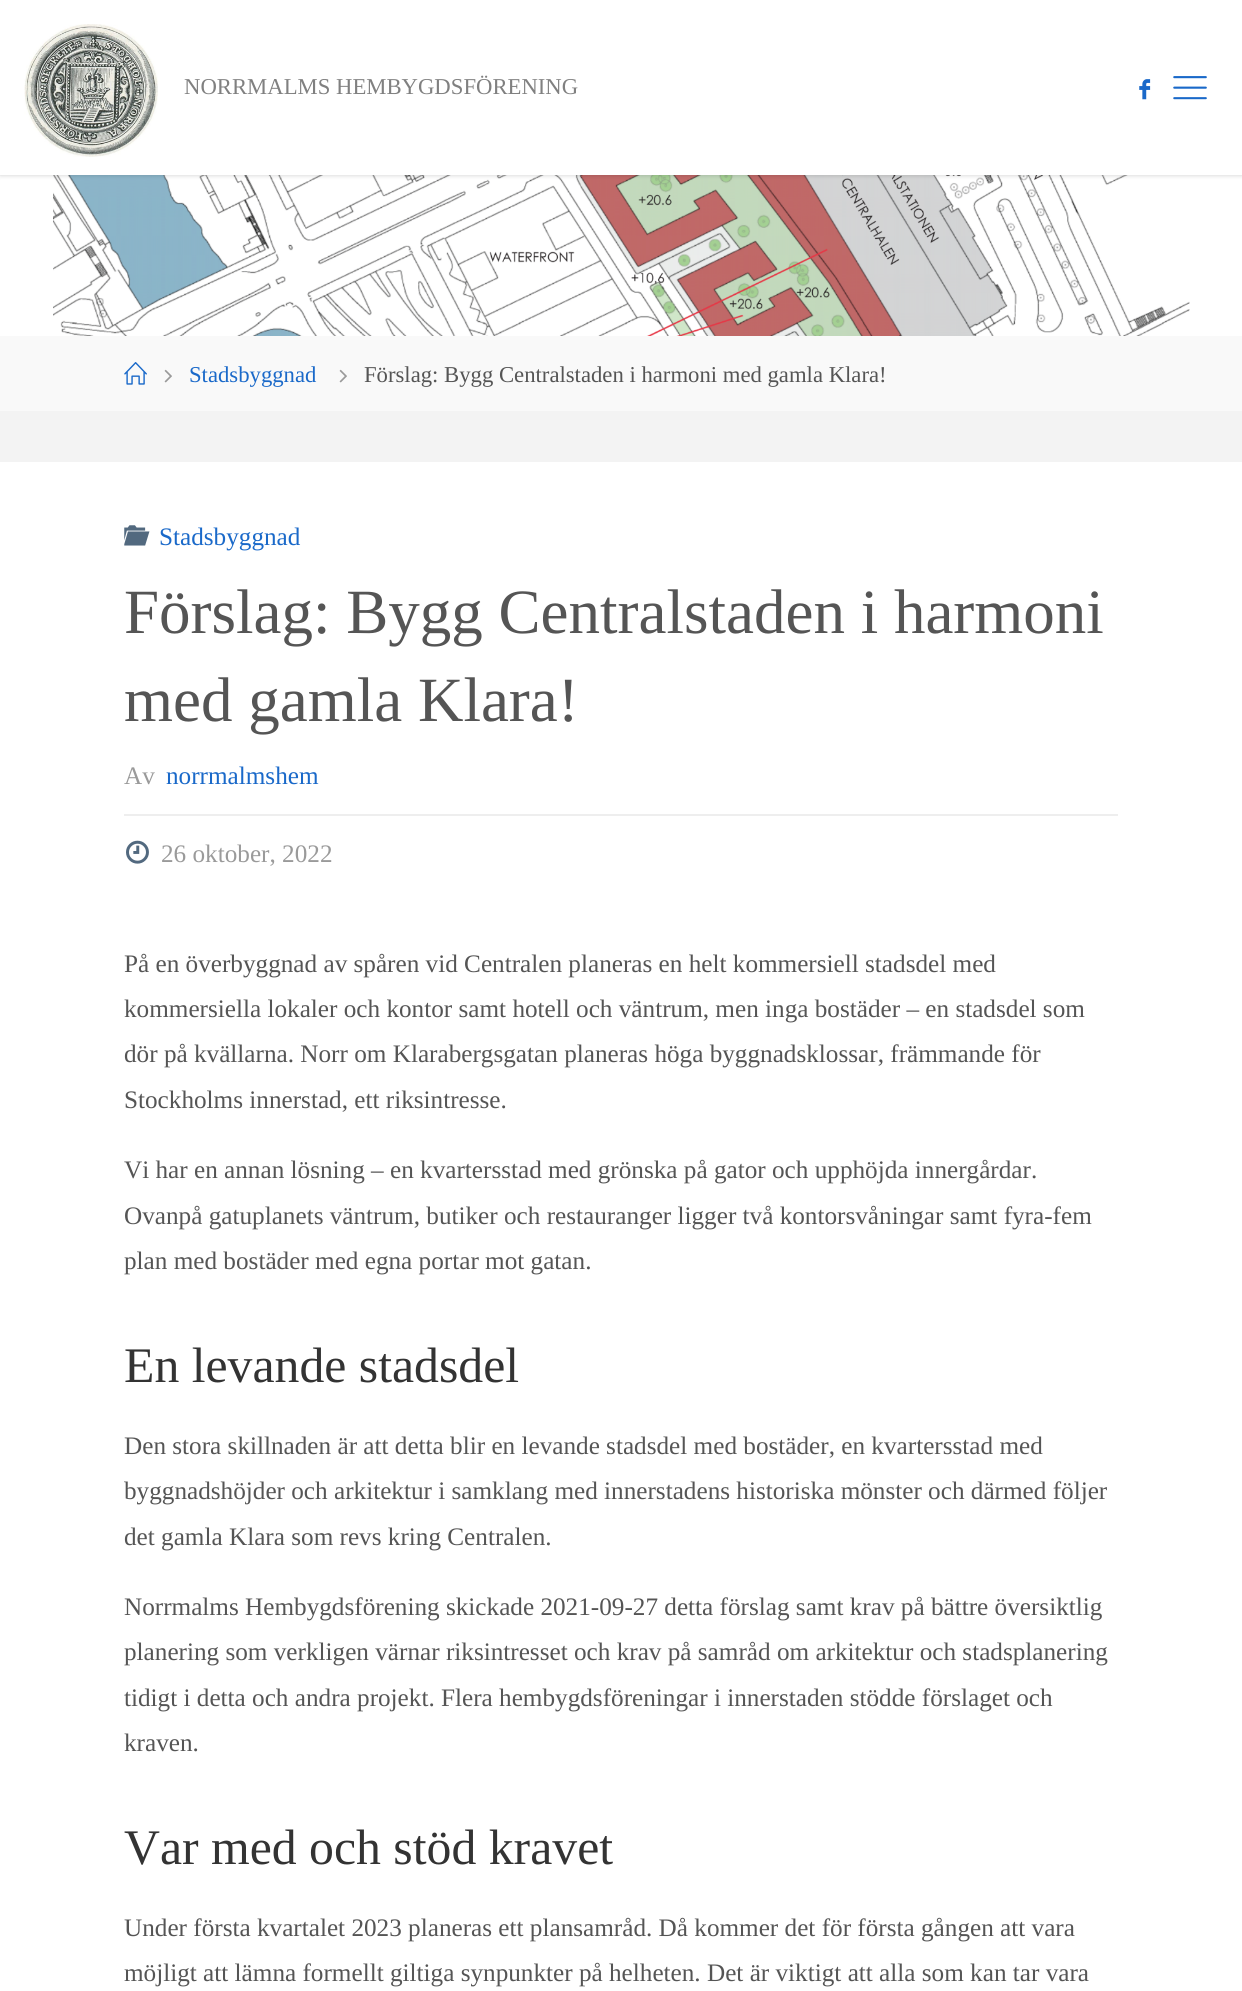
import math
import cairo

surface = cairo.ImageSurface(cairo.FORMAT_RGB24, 1242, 1991)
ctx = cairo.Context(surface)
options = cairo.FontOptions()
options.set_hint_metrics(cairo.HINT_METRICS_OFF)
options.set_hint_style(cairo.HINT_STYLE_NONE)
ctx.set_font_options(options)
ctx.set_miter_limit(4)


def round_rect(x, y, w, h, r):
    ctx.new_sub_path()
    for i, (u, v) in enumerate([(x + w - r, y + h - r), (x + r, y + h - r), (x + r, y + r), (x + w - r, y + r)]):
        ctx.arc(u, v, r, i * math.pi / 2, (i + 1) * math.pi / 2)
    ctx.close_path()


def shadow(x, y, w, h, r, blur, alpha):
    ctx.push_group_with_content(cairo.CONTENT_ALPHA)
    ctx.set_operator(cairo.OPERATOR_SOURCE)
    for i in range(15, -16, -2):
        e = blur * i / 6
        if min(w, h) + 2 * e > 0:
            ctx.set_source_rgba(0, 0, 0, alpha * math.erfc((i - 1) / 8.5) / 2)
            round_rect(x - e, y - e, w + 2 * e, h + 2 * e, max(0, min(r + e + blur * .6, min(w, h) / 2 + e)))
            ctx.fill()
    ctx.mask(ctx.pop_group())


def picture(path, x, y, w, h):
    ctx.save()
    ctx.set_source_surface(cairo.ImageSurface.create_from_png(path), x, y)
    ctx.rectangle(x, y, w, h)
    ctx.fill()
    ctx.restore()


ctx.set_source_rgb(0.953, 0.953, 0.953)
ctx.paint()
picture("img4.png", 0, 175, 1242, 161)
ctx.set_source_rgb(0, 0, 0)
shadow(0, 0, 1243, 175, 0, 2.5, 0.2)
ctx.set_source_rgb(1, 1, 1)
ctx.rectangle(0, 0, 1242, 175)
ctx.fill()
picture("img1.png", 24, 24, 134, 133)
ctx.select_font_face("Liberation Serif")
ctx.set_font_size(22.7)
ctx.set_source_rgb(0.502, 0.502, 0.502)
ctx.move_to(184, 94)
ctx.show_text("NORRMALMS HEMBYGDSFÖRENING")
picture("img2.png", 1139, 79, 12, 21)
picture("img3.png", 1173, 76, 34, 24)
ctx.set_source_rgb(0.973, 0.973, 0.973)
ctx.rectangle(0, 336, 1242, 75)
ctx.fill()
picture("img5.png", 124, 362, 23, 23)
picture("img6.png", 164, 369, 8, 14)
ctx.set_source_rgb(0.102, 0.412, 0.788)
ctx.move_to(189, 382)
ctx.show_text("Stadsbyggnad")
picture("img6.png", 339, 369, 8, 14)
ctx.set_source_rgb(0.333, 0.333, 0.333)
ctx.move_to(364, 382)
ctx.show_text("Förslag: Bygg Centralstaden i harmoni med gamla Klara!")
ctx.set_source_rgb(1, 1, 1)
ctx.rectangle(0, 462, 1242, 1529)
ctx.fill()
picture("img7.png", 124, 525, 26, 21)
ctx.set_font_size(25.2)
ctx.set_source_rgb(0.102, 0.412, 0.788)
ctx.move_to(159, 545)
ctx.show_text("Stadsbyggnad")
ctx.set_font_size(63)
ctx.set_source_rgb(0.333, 0.333, 0.333)
ctx.move_to(124, 633)
ctx.show_text("Förslag: Bygg Centralstaden i harmoni")
ctx.move_to(124, 721)
ctx.show_text("med gamla Klara!")
ctx.set_source_rgb(0.933, 0.933, 0.933)
ctx.rectangle(124, 814, 994, 2)
ctx.fill()
ctx.set_font_size(25.2)
ctx.set_source_rgb(0.604, 0.604, 0.604)
ctx.move_to(124, 784)
ctx.show_text("Av")
ctx.set_source_rgb(0.102, 0.412, 0.788)
ctx.move_to(166, 784)
ctx.show_text("norrmalmshem")
picture("img8.png", 126, 840, 23, 24)
ctx.set_source_rgb(0.604, 0.604, 0.604)
ctx.move_to(161, 862)
ctx.show_text("26 oktober, 2022")
ctx.set_source_rgb(0.333, 0.333, 0.333)
ctx.move_to(124, 972)
ctx.show_text("På en överbyggnad av spåren vid Centralen planeras en helt kommersiell stadsdel med")
ctx.move_to(124, 1017)
ctx.show_text("kommersiella lokaler och kontor samt hotell och väntrum, men inga bostäder – en stadsdel som")
ctx.move_to(124, 1062)
ctx.show_text("dör på kvällarna. Norr om Klarabergsgatan planeras höga byggnadsklossar, främmande för")
ctx.move_to(124, 1108)
ctx.show_text("Stockholms innerstad, ett riksintresse.")
ctx.move_to(124, 1178)
ctx.show_text("Vi har en annan lösning – en kvartersstad med grönska på gator och upphöjda innergårdar.")
ctx.move_to(124, 1224)
ctx.show_text("Ovanpå gatuplanets väntrum, butiker och restauranger ligger två kontorsvåningar samt fyra-fem")
ctx.move_to(124, 1269)
ctx.show_text("plan med bostäder med egna portar mot gatan.")
ctx.set_font_size(49.75)
ctx.set_source_rgb(0.2, 0.2, 0.2)
ctx.move_to(124, 1382)
ctx.show_text("En levande stadsdel")
ctx.set_font_size(25.2)
ctx.set_source_rgb(0.333, 0.333, 0.333)
ctx.move_to(124, 1454)
ctx.show_text("Den stora skillnaden är att detta blir en levande stadsdel med bostäder, en kvartersstad med")
ctx.move_to(124, 1499)
ctx.show_text("byggnadshöjder och arkitektur i samklang med innerstadens historiska mönster och därmed följer")
ctx.move_to(124, 1545)
ctx.show_text("det gamla Klara som revs kring Centralen.")
ctx.move_to(124, 1615)
ctx.show_text("Norrmalms Hembygdsförening skickade 2021-09-27 detta förslag samt krav på bättre översiktlig")
ctx.move_to(124, 1660)
ctx.show_text("planering som verkligen värnar riksintresset och krav på samråd om arkitektur och stadsplanering")
ctx.move_to(124, 1706)
ctx.show_text("tidigt i detta och andra projekt. Flera hembygdsföreningar i innerstaden stödde förslaget och")
ctx.move_to(124, 1751)
ctx.show_text("kraven.")
ctx.set_font_size(49.75)
ctx.set_source_rgb(0.2, 0.2, 0.2)
ctx.move_to(124, 1864)
ctx.show_text("Var med och stöd kravet")
ctx.set_font_size(25.2)
ctx.set_source_rgb(0.333, 0.333, 0.333)
ctx.move_to(124, 1936)
ctx.show_text("Under första kvartalet 2023 planeras ett plansamråd. Då kommer det för första gången att vara")
ctx.move_to(124, 1981)
ctx.show_text("möjligt att lämna formellt giltiga synpunkter på helheten. Det är viktigt att alla som kan tar vara")
surface.write_to_png("page.png")
